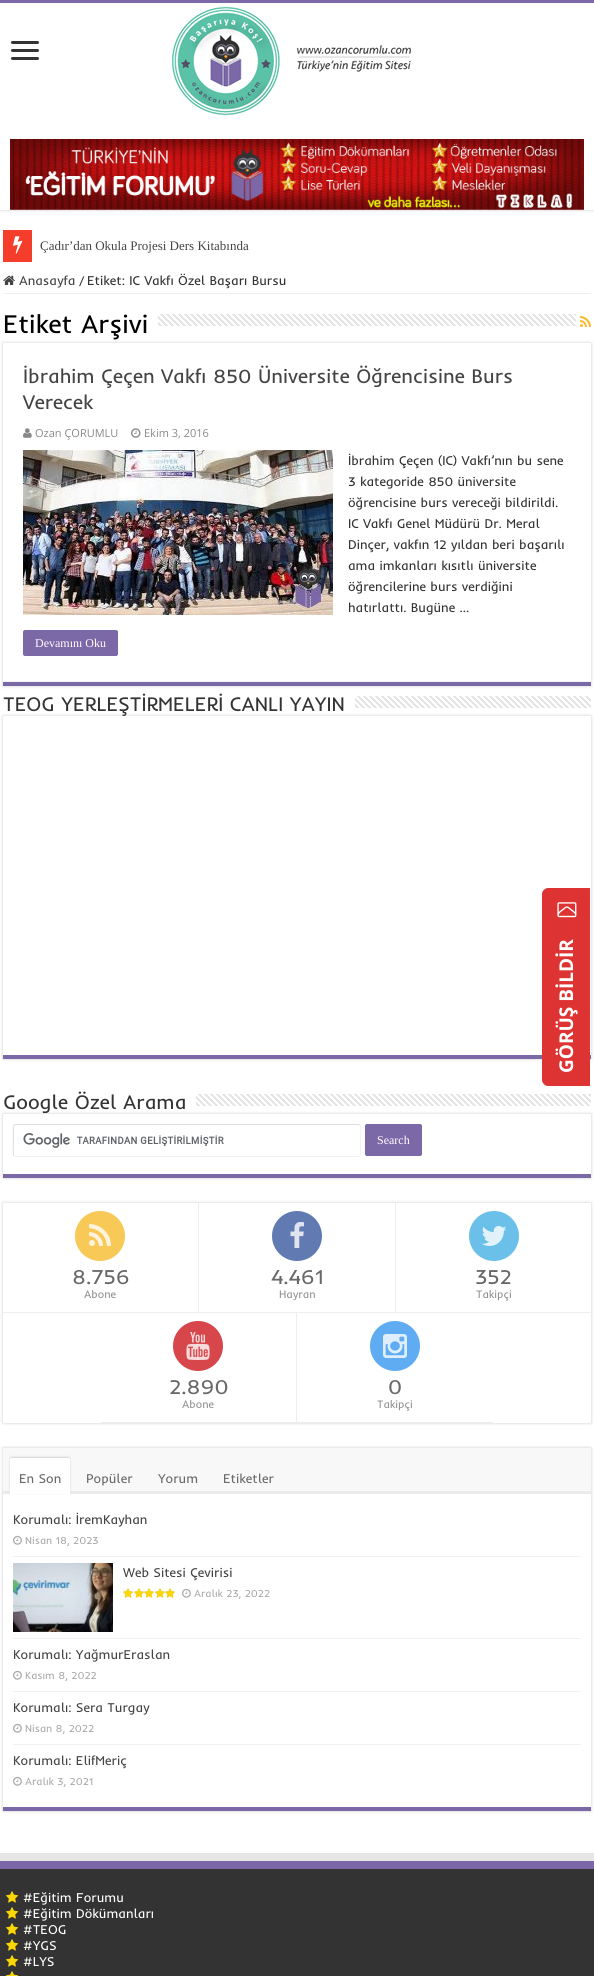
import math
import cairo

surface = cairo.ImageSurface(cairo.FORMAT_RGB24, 594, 1976)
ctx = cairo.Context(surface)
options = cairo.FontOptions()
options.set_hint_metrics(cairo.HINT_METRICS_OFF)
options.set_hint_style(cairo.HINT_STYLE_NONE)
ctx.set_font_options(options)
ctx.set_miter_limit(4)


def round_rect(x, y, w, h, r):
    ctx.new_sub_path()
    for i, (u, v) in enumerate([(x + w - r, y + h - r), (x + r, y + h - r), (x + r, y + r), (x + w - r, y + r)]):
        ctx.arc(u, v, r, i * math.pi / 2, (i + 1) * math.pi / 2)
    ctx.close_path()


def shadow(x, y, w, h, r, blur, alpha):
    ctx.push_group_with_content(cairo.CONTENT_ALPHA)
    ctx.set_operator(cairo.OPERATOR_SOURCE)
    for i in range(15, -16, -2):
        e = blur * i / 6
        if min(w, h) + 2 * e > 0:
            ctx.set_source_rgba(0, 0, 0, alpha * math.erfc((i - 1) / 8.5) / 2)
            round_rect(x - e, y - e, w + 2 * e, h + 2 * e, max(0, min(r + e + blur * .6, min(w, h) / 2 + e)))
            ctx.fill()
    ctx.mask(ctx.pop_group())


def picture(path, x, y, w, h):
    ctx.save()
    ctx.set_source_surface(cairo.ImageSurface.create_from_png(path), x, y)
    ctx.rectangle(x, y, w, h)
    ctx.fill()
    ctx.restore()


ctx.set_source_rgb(1, 1, 1)
ctx.paint()
ctx.save()
ctx.rectangle(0, 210, 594, 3)
ctx.clip()
ctx.set_source_rgb(0.792, 0.792, 0.792)
shadow(0, 0, 594, 210, 0, 1.5, 1)
ctx.restore()
ctx.set_source_rgb(0.482, 0.408, 0.655)
ctx.rectangle(0, 0, 594, 3)
ctx.fill()
ctx.set_source_rgb(0.2, 0.2, 0.2)
round_rect(11, 41, 28, 3, 1.5)
ctx.fill()
round_rect(11, 49, 28, 3, 1.5)
ctx.fill()
round_rect(11, 57, 28, 3, 1.5)
ctx.fill()
picture("img1.png", 172, 6, 240, 110)
picture("img2.png", 10, 139, 574, 71)
ctx.set_source_rgb(0.957, 0.239, 0.165)
ctx.rectangle(3, 230, 29, 32)
ctx.fill()
picture("img3.png", 13, 236, 10, 18)
ctx.select_font_face("Liberation Serif")
ctx.set_font_size(13)
ctx.set_source_rgb(0.267, 0.267, 0.267)
ctx.move_to(40, 250)
ctx.show_text("Çadır’dan Okula Projesi Ders Kitabında")
ctx.set_source_rgb(0.933, 0.933, 0.933)
ctx.rectangle(3, 293, 588, 1)
ctx.fill()
picture("img4.png", 3, 275, 12, 10)
ctx.select_font_face("Inder")
ctx.set_source_rgb(0.267, 0.267, 0.267)
ctx.move_to(19, 285)
ctx.show_text("Anasayfa")
ctx.set_source_rgb(0.2, 0.2, 0.2)
ctx.move_to(79, 285)
ctx.show_text("/")
ctx.move_to(87, 285)
ctx.show_text("Etiket: IC Vakfı Özel Başarı Bursu")
ctx.save()
ctx.set_fill_rule(cairo.FILL_RULE_EVEN_ODD)
ctx.new_path()
ctx.move_to(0, 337)
ctx.line_to(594, 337)
ctx.line_to(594, 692)
ctx.line_to(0, 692)
ctx.close_path()
ctx.move_to(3, 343)
ctx.line_to(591, 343)
ctx.line_to(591, 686)
ctx.line_to(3, 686)
ctx.close_path()
ctx.clip()
ctx.set_source_rgb(0.792, 0.792, 0.792)
shadow(3, 343, 588, 343, 0, 1.5, 1)
ctx.restore()
ctx.set_font_size(26)
ctx.set_source_rgb(0, 0, 0)
ctx.move_to(3, 333)
ctx.show_text("Etiket Arşivi")
picture("img5.png", 158, 314, 418, 12)
picture("img6.png", 580, 316, 11, 11)
ctx.set_source_rgb(0.482, 0.408, 0.655)
ctx.rectangle(3, 682, 588, 4)
ctx.fill()
ctx.set_source_rgb(0.949, 0.949, 0.949)
ctx.rectangle(3, 681, 588, 1)
ctx.fill()
ctx.set_font_size(20)
ctx.set_source_rgb(0.267, 0.267, 0.267)
ctx.move_to(23, 383)
ctx.show_text("İbrahim Çeçen Vakfı 850 Üniversite Öğrencisine Burs")
ctx.move_to(23, 409)
ctx.show_text("Verecek")
picture("img7.png", 23, 428, 9, 10)
ctx.select_font_face("Open Sans")
ctx.set_font_size(11)
ctx.set_source_rgb(0.533, 0.533, 0.533)
ctx.move_to(35, 437)
ctx.show_text("Ozan ÇORUMLU")
picture("img8.png", 131, 428, 10, 10)
ctx.move_to(144, 437)
ctx.show_text("Ekim 3, 2016")
picture("img9.png", 23, 450, 310, 165)
ctx.select_font_face("Inder")
ctx.set_font_size(13)
ctx.set_source_rgb(0.2, 0.2, 0.2)
ctx.move_to(348, 465)
ctx.show_text("İbrahim Çeçen (IC) Vakfı’nın bu sene")
ctx.move_to(348, 486)
ctx.show_text("3 kategoride 850 üniversite")
ctx.move_to(348, 507)
ctx.show_text("öğrencisine burs vereceği bildirildi.")
ctx.move_to(348, 528)
ctx.show_text("IC Vakfı Genel Müdürü Dr. Meral")
ctx.move_to(348, 549)
ctx.show_text("Dinçer, vakfın 12 yıldan beri başarılı")
ctx.move_to(348, 570)
ctx.show_text("ama imkanları kısıtlı üniversite")
ctx.move_to(348, 591)
ctx.show_text("öğrencilerine burs verdiğini")
ctx.move_to(348, 612)
ctx.show_text("hatırlattı. Bugüne …")
ctx.set_source_rgb(0.482, 0.408, 0.655)
round_rect(23, 630, 95, 26, 2)
ctx.fill()
ctx.select_font_face("Liberation Serif")
ctx.set_font_size(12)
ctx.set_source_rgb(1, 1, 1)
ctx.move_to(35, 647)
ctx.show_text("Devamını Oku")
ctx.save()
ctx.set_fill_rule(cairo.FILL_RULE_EVEN_ODD)
ctx.new_path()
ctx.move_to(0, 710)
ctx.line_to(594, 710)
ctx.line_to(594, 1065)
ctx.line_to(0, 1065)
ctx.close_path()
ctx.move_to(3, 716)
ctx.line_to(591, 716)
ctx.line_to(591, 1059)
ctx.line_to(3, 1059)
ctx.close_path()
ctx.clip()
ctx.set_source_rgb(0.792, 0.792, 0.792)
shadow(3, 716, 588, 343, 0, 1.5, 1)
ctx.restore()
ctx.select_font_face("Inder")
ctx.set_font_size(20)
ctx.set_source_rgb(0.2, 0.2, 0.2)
ctx.move_to(3, 711)
ctx.show_text("TEOG YERLEŞTİRMELERİ CANLI YAYIN")
picture("img10.png", 355, 696, 236, 12)
ctx.set_source_rgb(0.482, 0.408, 0.655)
ctx.rectangle(3, 1055, 588, 4)
ctx.fill()
ctx.save()
ctx.set_fill_rule(cairo.FILL_RULE_EVEN_ODD)
ctx.new_path()
ctx.move_to(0, 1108)
ctx.line_to(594, 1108)
ctx.line_to(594, 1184)
ctx.line_to(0, 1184)
ctx.close_path()
ctx.move_to(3, 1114)
ctx.line_to(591, 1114)
ctx.line_to(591, 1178)
ctx.line_to(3, 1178)
ctx.close_path()
ctx.clip()
ctx.set_source_rgb(0.792, 0.792, 0.792)
shadow(3, 1114, 588, 64, 0, 1.5, 1)
ctx.restore()
ctx.set_source_rgb(0.2, 0.2, 0.2)
ctx.move_to(3, 1109)
ctx.show_text("Google Özel Arama")
picture("img11.png", 196, 1094, 395, 12)
ctx.set_source_rgb(0.482, 0.408, 0.655)
ctx.rectangle(3, 1174, 588, 4)
ctx.fill()
picture("img12.png", 23, 1133, 201, 15)
ctx.new_path()
ctx.move_to(360, 1125)
ctx.curve_to(361.5, 1127, 360.5, 1138, 360.5, 1140.5)
ctx.line_to(360.5, 1149.5)
ctx.curve_to(360.5, 1151.5, 361.5, 1156.5, 358, 1156.5)
ctx.line_to(16, 1156.5)
ctx.line_to(14, 1156)
ctx.set_source_rgb(0.945, 0.945, 0.945)
ctx.set_line_width(1)
ctx.stroke()
ctx.new_path()
ctx.move_to(14, 1156)
ctx.curve_to(12.5, 1154, 13.5, 1143, 13.5, 1140.5)
ctx.line_to(13.5, 1131.5)
ctx.curve_to(13.5, 1129.5, 12.5, 1124.5, 16, 1124.5)
ctx.line_to(358, 1124.5)
ctx.line_to(360, 1125)
ctx.set_source_rgb(0.867, 0.867, 0.867)
ctx.stroke()
ctx.set_source_rgb(0.482, 0.408, 0.655)
round_rect(365, 1124, 57, 32, 2)
ctx.fill()
ctx.select_font_face("Liberation Serif")
ctx.set_font_size(12)
ctx.set_source_rgb(1, 1, 1)
ctx.move_to(377, 1144)
ctx.show_text("Search")
ctx.save()
ctx.set_fill_rule(cairo.FILL_RULE_EVEN_ODD)
ctx.new_path()
ctx.move_to(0, 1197)
ctx.line_to(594, 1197)
ctx.line_to(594, 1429)
ctx.line_to(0, 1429)
ctx.close_path()
ctx.move_to(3, 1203)
ctx.line_to(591, 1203)
ctx.line_to(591, 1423)
ctx.line_to(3, 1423)
ctx.close_path()
ctx.clip()
ctx.set_source_rgb(0.792, 0.792, 0.792)
shadow(3, 1203, 588, 220, 0, 1.5, 1)
ctx.restore()
ctx.set_source_rgb(0.933, 0.933, 0.933)
ctx.rectangle(198, 1203, 1, 110)
ctx.fill()
ctx.rectangle(3, 1312, 588, 1)
ctx.fill()
ctx.set_source_rgb(0.976, 0.788, 0.345)
ctx.arc(100, 1236, 25, 0, 2 * math.pi)
ctx.fill()
picture("img13.png", 89, 1224, 22, 22)
ctx.select_font_face("Inder")
ctx.set_font_size(21)
ctx.set_source_rgb(0.412, 0.412, 0.412)
ctx.move_to(72, 1284)
ctx.show_text("8.756")
ctx.set_font_size(11)
ctx.set_source_rgb(0.573, 0.573, 0.573)
ctx.move_to(84, 1298)
ctx.show_text("Abone")
ctx.set_source_rgb(0.38, 0.478, 0.698)
ctx.new_path()
ctx.arc(297, 1236, 25, 0, 2 * math.pi)
ctx.fill()
picture("img14.png", 290, 1222, 14, 26)
ctx.set_font_size(21)
ctx.set_source_rgb(0.412, 0.412, 0.412)
ctx.move_to(271, 1284)
ctx.show_text("4.461")
ctx.set_font_size(11)
ctx.set_source_rgb(0.573, 0.573, 0.573)
ctx.move_to(279, 1298)
ctx.show_text("Hayran")
ctx.set_source_rgb(0.933, 0.933, 0.933)
ctx.rectangle(395, 1203, 1, 110)
ctx.fill()
ctx.set_source_rgb(0.416, 0.753, 0.914)
ctx.arc(494, 1236, 25, 0, 2 * math.pi)
ctx.fill()
picture("img15.png", 482, 1226, 25, 20)
ctx.set_font_size(21)
ctx.set_source_rgb(0.412, 0.412, 0.412)
ctx.move_to(475, 1284)
ctx.show_text("352")
ctx.set_font_size(11)
ctx.set_source_rgb(0.573, 0.573, 0.573)
ctx.move_to(476, 1298)
ctx.show_text("Takipçi")
ctx.set_source_rgb(0.933, 0.933, 0.933)
ctx.rectangle(296, 1313, 1, 110)
ctx.fill()
ctx.rectangle(101, 1422, 392, 1)
ctx.fill()
ctx.set_source_rgb(0.839, 0.275, 0.294)
ctx.arc(198, 1346, 25, 0, 2 * math.pi)
ctx.fill()
picture("img16.png", 186, 1332, 24, 28)
ctx.set_font_size(21)
ctx.set_source_rgb(0.412, 0.412, 0.412)
ctx.move_to(169, 1394)
ctx.show_text("2.890")
ctx.set_font_size(11)
ctx.set_source_rgb(0.573, 0.573, 0.573)
ctx.move_to(182, 1408)
ctx.show_text("Abone")
ctx.set_source_rgb(0.376, 0.675, 0.953)
ctx.new_path()
ctx.arc(395, 1346, 25, 0, 2 * math.pi)
ctx.fill()
picture("img17.png", 383, 1334, 24, 24)
ctx.set_font_size(21)
ctx.set_source_rgb(0.412, 0.412, 0.412)
ctx.move_to(388, 1394)
ctx.show_text("0")
ctx.set_font_size(11)
ctx.set_source_rgb(0.573, 0.573, 0.573)
ctx.move_to(377, 1408)
ctx.show_text("Takipçi")
ctx.save()
ctx.set_fill_rule(cairo.FILL_RULE_EVEN_ODD)
ctx.new_path()
ctx.move_to(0, 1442)
ctx.line_to(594, 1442)
ctx.line_to(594, 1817)
ctx.line_to(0, 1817)
ctx.close_path()
ctx.move_to(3, 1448)
ctx.line_to(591, 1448)
ctx.line_to(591, 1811)
ctx.line_to(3, 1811)
ctx.close_path()
ctx.clip()
ctx.set_source_rgb(0.792, 0.792, 0.792)
shadow(3, 1448, 588, 363, 0, 1.5, 1)
ctx.restore()
ctx.set_source_rgb(0.482, 0.408, 0.655)
ctx.rectangle(3, 1807, 588, 4)
ctx.fill()
ctx.set_source_rgb(0.969, 0.969, 0.969)
ctx.rectangle(3, 1448, 588, 43)
ctx.fill()
ctx.set_source_rgb(0.918, 0.918, 0.918)
ctx.rectangle(3, 1491, 588, 3)
ctx.fill()
ctx.set_source_rgb(0.831, 0.831, 0.831)
shadow(10, 1457, 60, 36, 2, 1, 1)
ctx.set_source_rgb(1, 1, 1)
ctx.new_path()
ctx.move_to(12, 1458)
ctx.line_to(68, 1458)
ctx.curve_to(69, 1458, 70, 1459, 70, 1460)
ctx.line_to(70, 1494)
ctx.line_to(10, 1494)
ctx.line_to(10, 1460)
ctx.curve_to(10, 1459, 11, 1458, 12, 1458)
ctx.close_path()
ctx.fill()
ctx.set_font_size(13)
ctx.set_source_rgb(0.412, 0.412, 0.412)
ctx.move_to(19, 1483)
ctx.show_text("En Son")
ctx.move_to(86, 1483)
ctx.show_text("Popüler")
ctx.move_to(158, 1483)
ctx.show_text("Yorum")
ctx.move_to(223, 1483)
ctx.show_text("Etiketler")
ctx.set_source_rgb(0.949, 0.949, 0.949)
ctx.rectangle(13, 1556, 568, 1)
ctx.fill()
ctx.set_source_rgb(0.267, 0.267, 0.267)
ctx.move_to(13, 1524)
ctx.show_text("Korumalı: İremKayhan")
picture("img18.png", 13, 1535, 9, 10)
ctx.set_font_size(10.5)
ctx.set_source_rgb(0.667, 0.667, 0.667)
ctx.move_to(25, 1544)
ctx.show_text("Nisan 18, 2023")
ctx.set_source_rgb(0.949, 0.949, 0.949)
ctx.rectangle(13, 1638, 568, 1)
ctx.fill()
picture("img19.png", 13, 1563, 100, 69)
ctx.set_font_size(13)
ctx.set_source_rgb(0.267, 0.267, 0.267)
ctx.move_to(123, 1577)
ctx.show_text("Web Sitesi Çevirisi")
picture("img20.png", 123, 1588, 52, 10)
picture("img21.png", 123, 1588, 52, 10)
picture("img18.png", 182, 1588, 9, 10)
ctx.set_font_size(10.5)
ctx.set_source_rgb(0.667, 0.667, 0.667)
ctx.move_to(194, 1597)
ctx.show_text("Aralık 23, 2022")
ctx.set_source_rgb(0.949, 0.949, 0.949)
ctx.rectangle(13, 1691, 568, 1)
ctx.fill()
ctx.set_font_size(13)
ctx.set_source_rgb(0.267, 0.267, 0.267)
ctx.move_to(13, 1659)
ctx.show_text("Korumalı: YağmurEraslan")
picture("img18.png", 13, 1670, 9, 10)
ctx.set_font_size(10.5)
ctx.set_source_rgb(0.667, 0.667, 0.667)
ctx.move_to(25, 1679)
ctx.show_text("Kasım 8, 2022")
ctx.set_source_rgb(0.949, 0.949, 0.949)
ctx.rectangle(13, 1744, 568, 1)
ctx.fill()
ctx.set_font_size(13)
ctx.set_source_rgb(0.267, 0.267, 0.267)
ctx.move_to(13, 1712)
ctx.show_text("Korumalı: Sera Turgay")
picture("img18.png", 13, 1723, 9, 10)
ctx.set_font_size(10.5)
ctx.set_source_rgb(0.667, 0.667, 0.667)
ctx.move_to(25, 1732)
ctx.show_text("Nisan 8, 2022")
ctx.set_font_size(13)
ctx.set_source_rgb(0.267, 0.267, 0.267)
ctx.move_to(13, 1765)
ctx.show_text("Korumalı: ElifMeriç")
picture("img18.png", 13, 1776, 9, 10)
ctx.set_font_size(10.5)
ctx.set_source_rgb(0.667, 0.667, 0.667)
ctx.move_to(25, 1785)
ctx.show_text("Aralık 3, 2021")
ctx.set_source_rgb(0.902, 0.902, 0.902)
ctx.rectangle(0, 1853, 594, 8)
ctx.fill()
ctx.set_source_rgb(0.2, 0.2, 0.2)
ctx.rectangle(0, 1869, 594, 107)
ctx.fill()
ctx.set_source_rgb(0.482, 0.408, 0.655)
ctx.rectangle(0, 1861, 594, 8)
ctx.fill()
picture("img22.png", 6, 1891, 12, 12)
ctx.set_font_size(13)
ctx.set_source_rgb(1, 1, 1)
ctx.move_to(23, 1902)
ctx.show_text("#Eğitim Forumu")
picture("img22.png", 6, 1907, 12, 12)
ctx.move_to(23, 1918)
ctx.show_text("#Eğitim Dökümanları")
picture("img22.png", 6, 1923, 12, 12)
ctx.move_to(23, 1934)
ctx.show_text("#TEOG")
picture("img22.png", 6, 1939, 12, 12)
ctx.move_to(23, 1950)
ctx.show_text("#YGS")
picture("img22.png", 6, 1955, 12, 12)
ctx.move_to(23, 1966)
ctx.show_text("#LYS")
picture("img23.png", 6, 1971, 12, 5)
ctx.set_source_rgb(0.867, 0.2, 0.2)
ctx.new_path()
ctx.move_to(542, 1080)
ctx.line_to(542, 894)
ctx.curve_to(542, 891, 545, 888, 548, 888)
ctx.line_to(590, 888)
ctx.line_to(590, 1086)
ctx.line_to(548, 1086)
ctx.curve_to(545, 1086, 542, 1083, 542, 1080)
ctx.close_path()
ctx.fill()
picture("img24.png", 557, 902, 20, 16)
ctx.select_font_face("Open Sans", cairo.FONT_SLANT_NORMAL, cairo.FONT_WEIGHT_BOLD)
ctx.set_font_size(19)
ctx.set_source_rgb(1, 1, 1)
ctx.save()
ctx.translate(573, 1073)
ctx.rotate(-90 * math.pi / 180)
ctx.move_to(0, 0)
ctx.show_text("GÖRÜŞ BİLDİR")
ctx.restore()
surface.write_to_png("page.png")
